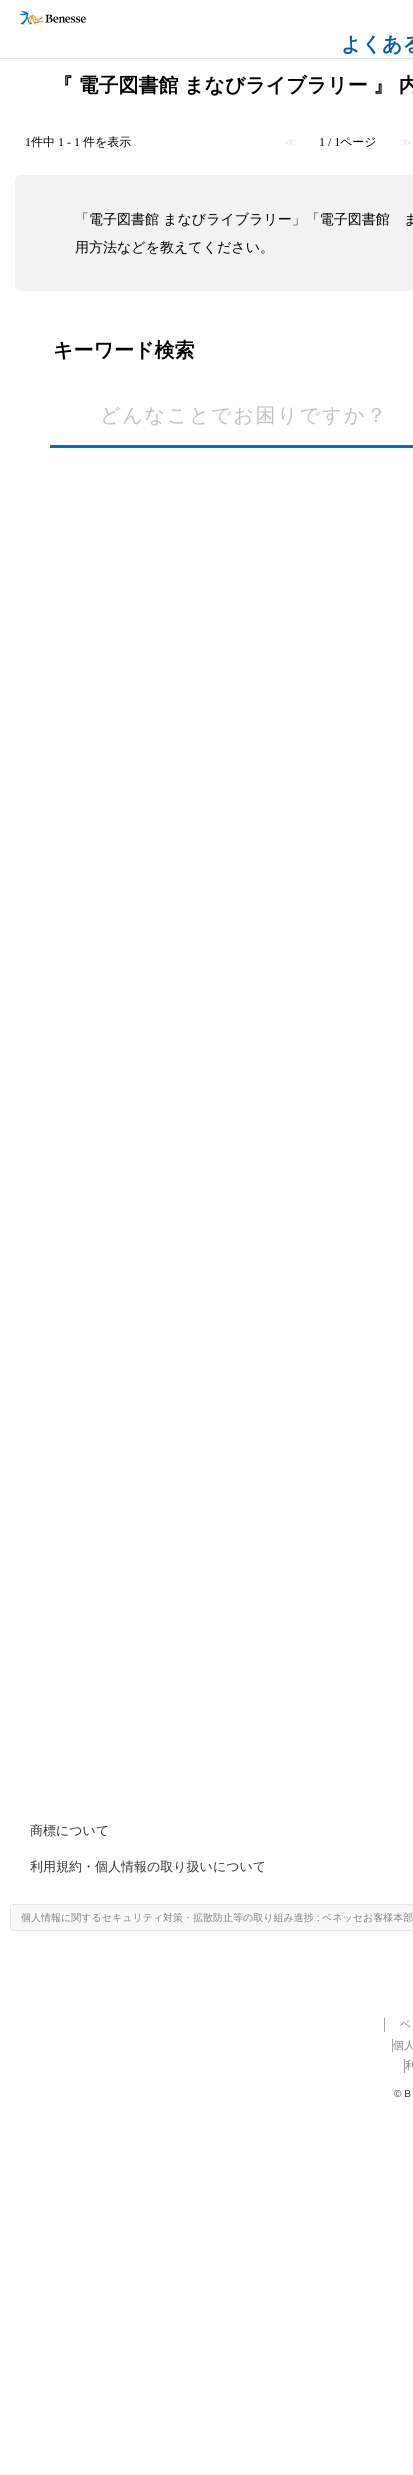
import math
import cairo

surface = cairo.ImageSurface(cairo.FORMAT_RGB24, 413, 2475)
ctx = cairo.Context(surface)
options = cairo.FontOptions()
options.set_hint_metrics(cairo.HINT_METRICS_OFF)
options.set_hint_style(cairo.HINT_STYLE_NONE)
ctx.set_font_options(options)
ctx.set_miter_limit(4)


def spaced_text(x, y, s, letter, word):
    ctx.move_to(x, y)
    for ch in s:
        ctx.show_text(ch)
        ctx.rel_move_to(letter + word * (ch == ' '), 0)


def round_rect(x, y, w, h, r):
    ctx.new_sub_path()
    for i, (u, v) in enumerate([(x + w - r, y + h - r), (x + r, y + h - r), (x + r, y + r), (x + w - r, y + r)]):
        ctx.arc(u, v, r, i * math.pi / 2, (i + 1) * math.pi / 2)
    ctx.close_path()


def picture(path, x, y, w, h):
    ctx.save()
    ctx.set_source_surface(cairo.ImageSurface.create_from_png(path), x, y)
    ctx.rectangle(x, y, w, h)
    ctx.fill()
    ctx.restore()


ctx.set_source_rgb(1, 1, 1)
ctx.paint()
picture("img1.png", 20, 11, 66, 14)
ctx.select_font_face("WenQuanYi Zen Hei", cairo.FONT_SLANT_NORMAL, cairo.FONT_WEIGHT_BOLD)
ctx.set_font_size(20)
ctx.set_source_rgb(0, 0.357, 0.675)
ctx.move_to(341, 51)
ctx.show_text("よくある")
ctx.set_source_rgb(0.898, 0.898, 0.898)
ctx.rectangle(0, 58, 413, 1)
ctx.fill()
ctx.set_source_rgb(0, 0, 0)
spaced_text(53, 92, "『 電子図書館 まなびライブラリー 』 内", 0, -0.5)
ctx.select_font_face("Liberation Serif")
ctx.set_font_size(12)
ctx.move_to(25, 146)
ctx.show_text("1")
ctx.select_font_face("WenQuanYi Zen Hei Medium")
ctx.move_to(31, 146)
ctx.show_text("件中")
ctx.select_font_face("Liberation Serif")
ctx.move_to(58, 146)
ctx.show_text("1 - 1")
ctx.select_font_face("WenQuanYi Zen Hei Medium")
ctx.move_to(83, 146)
ctx.show_text("件を表示")
ctx.set_source_rgb(0.867, 0.867, 0.867)
ctx.move_to(284, 146)
ctx.show_text("≪")
ctx.select_font_face("Liberation Serif")
ctx.set_source_rgb(0, 0, 0)
ctx.move_to(319, 146)
ctx.show_text("1 / 1")
ctx.select_font_face("WenQuanYi Zen Hei Medium")
ctx.move_to(340, 146)
ctx.show_text("ページ")
ctx.set_source_rgb(0.867, 0.867, 0.867)
ctx.move_to(400, 146)
ctx.show_text("≫")
ctx.set_source_rgb(0.949, 0.949, 0.949)
round_rect(15, 175, 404, 116, 6)
ctx.fill()
ctx.set_font_size(14)
ctx.set_source_rgb(0, 0, 0)
ctx.move_to(75, 224)
ctx.show_text("「電子図書館 まなびライブラリー」「電子図書館　ま")
ctx.move_to(75, 252)
ctx.show_text("用方法などを教えてください。")
ctx.select_font_face("WenQuanYi Zen Hei", cairo.FONT_SLANT_NORMAL, cairo.FONT_WEIGHT_BOLD)
ctx.set_font_size(20)
ctx.move_to(53, 357)
ctx.show_text("キーワード検索")
ctx.set_source_rgb(0, 0.439, 0.796)
ctx.rectangle(50, 445, 363, 3)
ctx.fill()
ctx.select_font_face("WenQuanYi Zen Hei Medium")
ctx.set_source_rgb(0.761, 0.761, 0.761)
spaced_text(100, 422, "どんなことでお困りですか？", 1.75, 0)
ctx.set_font_size(13)
ctx.set_source_rgb(0.2, 0.2, 0.2)
ctx.move_to(30, 1835)
ctx.show_text("商標について")
ctx.move_to(30, 1871)
ctx.show_text("利用規約・個人情報の取り扱いについて")
ctx.set_source_rgb(0.969, 0.969, 0.969)
round_rect(10.5, 1904.5, 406, 26, 2.5)
ctx.fill_preserve()
ctx.set_source_rgb(0.902, 0.902, 0.902)
ctx.set_line_width(1)
ctx.stroke()
ctx.set_font_size(10)
ctx.set_source_rgb(0.502, 0.502, 0.502)
ctx.move_to(21, 1921)
ctx.show_text("個人情報に関するセキュリティ対策・拡散防止等の取り組み進捗")
ctx.select_font_face("Liberation Sans")
ctx.move_to(317, 1921)
ctx.show_text(":")
ctx.select_font_face("WenQuanYi Zen Hei Medium")
ctx.move_to(322, 1921)
ctx.show_text("ベネッセお客様本部")
ctx.set_source_rgb(0.635, 0.635, 0.635)
ctx.rectangle(384, 2018, 1, 14)
ctx.fill()
ctx.set_font_size(11)
ctx.set_source_rgb(0.502, 0.502, 0.502)
ctx.move_to(400, 2028)
ctx.show_text("ベ")
ctx.set_source_rgb(0.635, 0.635, 0.635)
ctx.rectangle(392, 2039, 1, 13)
ctx.fill()
ctx.set_source_rgb(0.502, 0.502, 0.502)
ctx.move_to(393, 2049)
ctx.show_text("個人")
ctx.set_source_rgb(0.635, 0.635, 0.635)
ctx.rectangle(404, 2059, 1, 14)
ctx.fill()
ctx.set_source_rgb(0.502, 0.502, 0.502)
ctx.move_to(405, 2069)
ctx.show_text("利")
ctx.select_font_face("Liberation Sans")
ctx.set_font_size(10)
ctx.set_source_rgb(0.2, 0.2, 0.2)
ctx.move_to(394, 2097)
ctx.show_text("© B")
surface.write_to_png("page.png")
